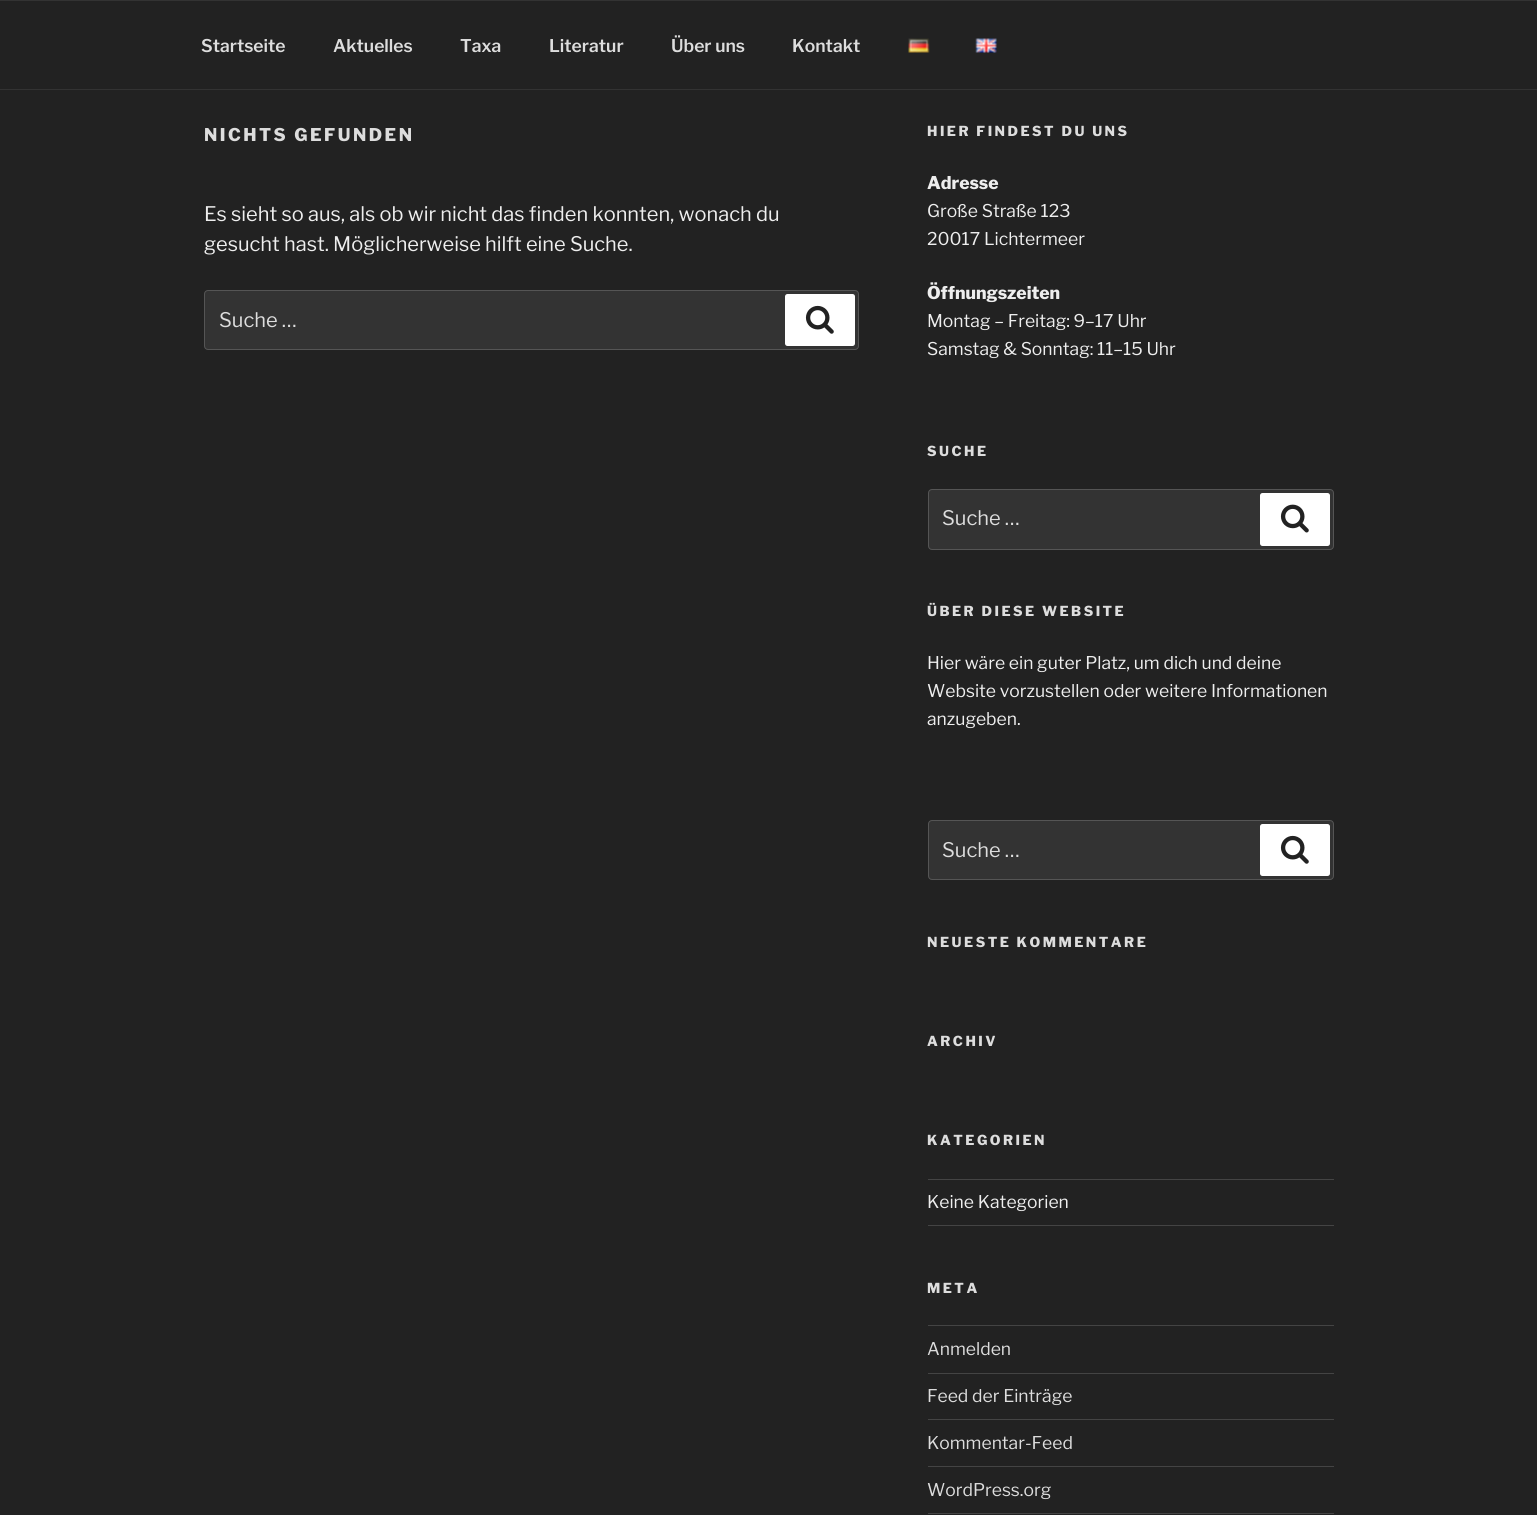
import math
import cairo

surface = cairo.ImageSurface(cairo.FORMAT_RGB24, 1537, 1515)
ctx = cairo.Context(surface)
options = cairo.FontOptions()
options.set_hint_metrics(cairo.HINT_METRICS_OFF)
options.set_hint_style(cairo.HINT_STYLE_NONE)
ctx.set_font_options(options)
ctx.set_miter_limit(4)


def spaced_text(x, y, s, letter, word):
    ctx.move_to(x, y)
    for ch in s:
        ctx.show_text(ch)
        ctx.rel_move_to(letter + word * (ch == ' '), 0)


def round_rect(x, y, w, h, r):
    ctx.new_sub_path()
    for i, (u, v) in enumerate([(x + w - r, y + h - r), (x + r, y + h - r), (x + r, y + r), (x + w - r, y + r)]):
        ctx.arc(u, v, r, i * math.pi / 2, (i + 1) * math.pi / 2)
    ctx.close_path()


def picture(path, x, y, w, h):
    ctx.save()
    ctx.set_source_surface(cairo.ImageSurface.create_from_png(path), x, y)
    ctx.rectangle(x, y, w, h)
    ctx.fill()
    ctx.restore()


ctx.set_source_rgb(0.133, 0.133, 0.133)
ctx.paint()
ctx.set_source_rgb(0.2, 0.2, 0.2)
ctx.rectangle(0, 0, 1537, 1)
ctx.fill()
ctx.rectangle(0, 89, 1537, 1)
ctx.fill()
ctx.select_font_face("Libre Franklin SemiBold")
ctx.set_font_size(17.5)
ctx.set_source_rgb(0.867, 0.867, 0.867)
ctx.move_to(201, 52)
ctx.show_text("Startseite")
ctx.move_to(333, 52)
ctx.show_text("Aktuelles")
ctx.move_to(460, 52)
ctx.show_text("Taxa")
ctx.move_to(549, 52)
ctx.show_text("Literatur")
ctx.move_to(671, 52)
ctx.show_text("Über uns")
ctx.move_to(792, 52)
ctx.show_text("Kontakt")
picture("img1.png", 908, 38, 22, 15)
picture("img2.png", 975, 38, 22, 15)
ctx.select_font_face("Libre Franklin ExtraBold")
spaced_text(204, 141, "NICHTS GEFUNDEN", 2.5, 0)
ctx.select_font_face("Libre Franklin")
ctx.set_font_size(20)
ctx.set_source_rgb(0.933, 0.933, 0.933)
ctx.move_to(204, 221)
ctx.show_text("Es sieht so aus, als ob wir nicht das finden konnten, wonach du")
ctx.move_to(204, 251)
ctx.show_text("gesucht hast. Möglicherweise hilft eine Suche.")
ctx.set_source_rgb(0.2, 0.2, 0.2)
round_rect(204.5, 290.5, 654, 59, 3.5)
ctx.fill_preserve()
ctx.set_source_rgb(0.333, 0.333, 0.333)
ctx.set_line_width(1)
ctx.stroke()
ctx.set_source_rgb(0.867, 0.867, 0.867)
ctx.move_to(219, 327)
ctx.show_text("Suche …")
ctx.set_source_rgb(1, 1, 1)
round_rect(785, 294, 70, 52, 2.5)
ctx.fill()
picture("img3.png", 805, 305, 29, 29)
ctx.select_font_face("Libre Franklin ExtraBold")
ctx.set_font_size(13.75)
ctx.set_source_rgb(0.867, 0.867, 0.867)
spaced_text(927, 136, "HIER FINDEST DU UNS", 2.5, 0)
ctx.set_font_size(17.5)
ctx.set_source_rgb(0.933, 0.933, 0.933)
ctx.move_to(927, 189)
ctx.show_text("Adresse")
ctx.select_font_face("Libre Franklin")
ctx.move_to(927, 217)
ctx.show_text("Große Straße 123")
ctx.move_to(927, 245)
ctx.show_text("20017 Lichtermeer")
ctx.select_font_face("Libre Franklin ExtraBold")
ctx.move_to(927, 299)
ctx.show_text("Öffnungszeiten")
ctx.select_font_face("Libre Franklin")
ctx.move_to(927, 327)
ctx.show_text("Montag – Freitag: 9–17 Uhr")
ctx.move_to(927, 355)
ctx.show_text("Samstag & Sonntag: 11–15 Uhr")
ctx.select_font_face("Libre Franklin ExtraBold")
ctx.set_font_size(13.75)
ctx.set_source_rgb(0.867, 0.867, 0.867)
spaced_text(927, 456, "SUCHE", 2.5, 0)
ctx.set_source_rgb(0.2, 0.2, 0.2)
round_rect(928.5, 489.5, 405, 60, 3.5)
ctx.fill_preserve()
ctx.set_source_rgb(0.333, 0.333, 0.333)
ctx.stroke()
ctx.select_font_face("Libre Franklin")
ctx.set_font_size(20)
ctx.set_source_rgb(0.867, 0.867, 0.867)
ctx.move_to(942, 525)
ctx.show_text("Suche …")
ctx.set_source_rgb(1, 1, 1)
round_rect(1260, 493, 70, 53, 2.5)
ctx.fill()
picture("img4.png", 1280, 504, 29, 29)
ctx.select_font_face("Libre Franklin ExtraBold")
ctx.set_font_size(13.75)
ctx.set_source_rgb(0.867, 0.867, 0.867)
spaced_text(927, 616, "ÜBER DIESE WEBSITE", 2.5, 0)
ctx.select_font_face("Libre Franklin")
ctx.set_font_size(17.5)
ctx.set_source_rgb(0.933, 0.933, 0.933)
ctx.move_to(927, 669)
ctx.show_text("Hier wäre ein guter Platz, um dich und deine")
ctx.move_to(927, 697)
ctx.show_text("Website vorzustellen oder weitere Informationen")
ctx.move_to(927, 725)
ctx.show_text("anzugeben.")
ctx.set_source_rgb(0.2, 0.2, 0.2)
round_rect(928.5, 820.5, 405, 59, 3.5)
ctx.fill_preserve()
ctx.set_source_rgb(0.333, 0.333, 0.333)
ctx.stroke()
ctx.set_font_size(20)
ctx.set_source_rgb(0.867, 0.867, 0.867)
ctx.move_to(942, 857)
ctx.show_text("Suche …")
ctx.set_source_rgb(1, 1, 1)
round_rect(1260, 824, 70, 52, 2.5)
ctx.fill()
picture("img3.png", 1280, 835, 29, 29)
ctx.select_font_face("Libre Franklin ExtraBold")
ctx.set_font_size(13.75)
ctx.set_source_rgb(0.867, 0.867, 0.867)
spaced_text(927, 947, "NEUESTE KOMMENTARE", 2.5, 0)
spaced_text(927, 1046, "ARCHIV", 2.5, 0)
spaced_text(927, 1145, "KATEGORIEN", 2.5, 0)
ctx.set_source_rgb(0.267, 0.267, 0.267)
ctx.rectangle(928, 1179, 406, 1)
ctx.fill()
ctx.rectangle(928, 1225, 406, 1)
ctx.fill()
ctx.select_font_face("Libre Franklin")
ctx.set_font_size(17.5)
ctx.set_source_rgb(0.933, 0.933, 0.933)
ctx.move_to(927, 1208)
ctx.show_text("Keine Kategorien")
ctx.select_font_face("Libre Franklin ExtraBold")
ctx.set_font_size(13.75)
ctx.set_source_rgb(0.867, 0.867, 0.867)
spaced_text(927, 1293, "META", 2.5, 0)
ctx.set_source_rgb(0.267, 0.267, 0.267)
ctx.rectangle(928, 1325, 406, 1)
ctx.fill()
ctx.rectangle(928, 1373, 406, 1)
ctx.fill()
ctx.select_font_face("Libre Franklin")
ctx.set_font_size(17.5)
ctx.set_source_rgb(0.867, 0.867, 0.867)
ctx.move_to(927, 1355)
ctx.show_text("Anmelden")
ctx.set_source_rgb(0.267, 0.267, 0.267)
ctx.rectangle(928, 1419, 406, 1)
ctx.fill()
ctx.set_source_rgb(0.867, 0.867, 0.867)
ctx.move_to(927, 1402)
ctx.show_text("Feed der Einträge")
ctx.set_source_rgb(0.267, 0.267, 0.267)
ctx.rectangle(928, 1466, 406, 1)
ctx.fill()
ctx.set_source_rgb(0.867, 0.867, 0.867)
ctx.move_to(927, 1449)
ctx.show_text("Kommentar-Feed")
ctx.set_source_rgb(0.267, 0.267, 0.267)
ctx.rectangle(928, 1513, 406, 1)
ctx.fill()
ctx.set_source_rgb(0.867, 0.867, 0.867)
ctx.move_to(927, 1496)
ctx.show_text("WordPress.org")
surface.write_to_png("page.png")
